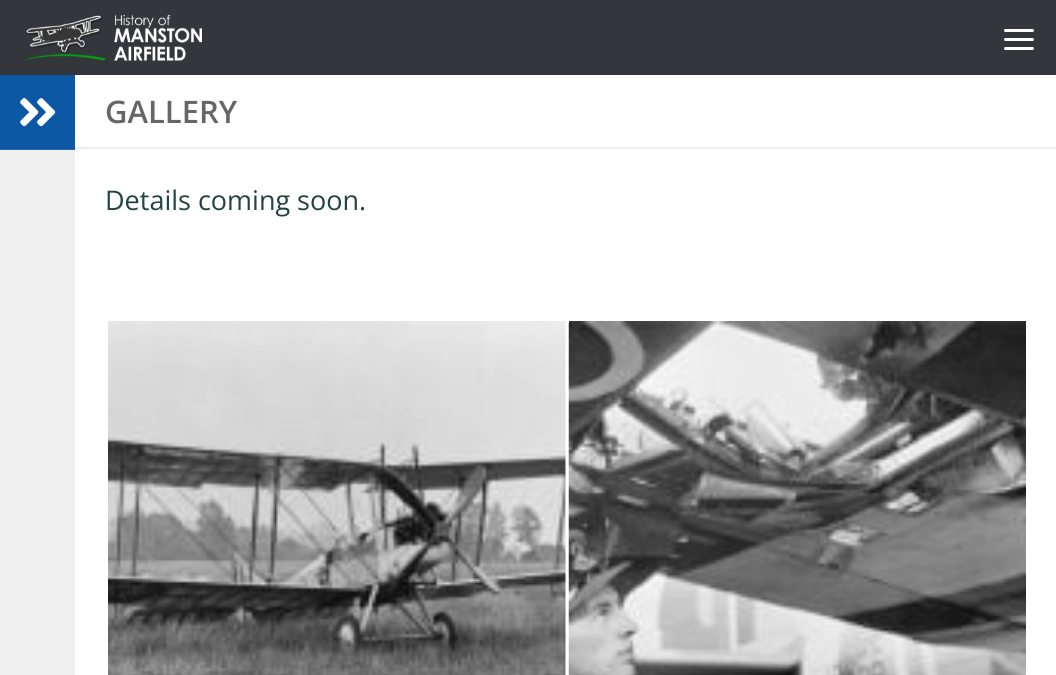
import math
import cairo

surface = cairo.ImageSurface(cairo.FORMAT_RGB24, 1056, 675)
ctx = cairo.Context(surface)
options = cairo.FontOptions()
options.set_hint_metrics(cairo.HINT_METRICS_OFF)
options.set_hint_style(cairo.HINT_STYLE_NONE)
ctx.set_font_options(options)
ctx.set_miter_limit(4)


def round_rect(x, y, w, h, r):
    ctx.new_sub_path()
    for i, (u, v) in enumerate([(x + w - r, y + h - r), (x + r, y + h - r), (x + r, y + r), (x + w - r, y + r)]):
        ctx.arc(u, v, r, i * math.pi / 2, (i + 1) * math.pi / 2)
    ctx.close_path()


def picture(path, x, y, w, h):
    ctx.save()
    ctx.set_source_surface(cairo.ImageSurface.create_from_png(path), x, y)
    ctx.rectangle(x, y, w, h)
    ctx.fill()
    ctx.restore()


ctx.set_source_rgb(1, 1, 1)
ctx.paint()
ctx.set_source_rgb(0.2, 0.212, 0.231)
ctx.rectangle(0, 0, 1056, 75)
ctx.fill()
picture("img1.png", 23, 14, 179, 47)
ctx.set_source_rgb(1, 1, 1)
round_rect(1004, 29, 30, 3, 1.5)
ctx.fill()
round_rect(1004, 38, 30, 3, 1.5)
ctx.fill()
round_rect(1004, 47, 30, 3, 1.5)
ctx.fill()
ctx.set_source_rgb(0.941, 0.941, 0.941)
ctx.rectangle(0, 150, 75, 525)
ctx.fill()
ctx.set_source_rgb(0.047, 0.345, 0.643)
ctx.rectangle(0, 75, 75, 75)
ctx.fill()
ctx.set_source_rgba(1, 1, 1, 0.1)
ctx.rectangle(0, 149, 75, 1)
ctx.fill()
picture("img2.png", 20, 98, 36, 29)
ctx.set_source_rgb(0.933, 0.933, 0.933)
ctx.rectangle(75, 147, 981, 2)
ctx.fill()
ctx.select_font_face("Open Sans SemiBold")
ctx.set_font_size(31)
ctx.set_source_rgb(0.4, 0.4, 0.4)
ctx.move_to(105, 123)
ctx.show_text("GALLERY")
ctx.select_font_face("Open Sans")
ctx.set_font_size(27)
ctx.set_source_rgb(0.133, 0.267, 0.267)
ctx.move_to(105, 210)
ctx.show_text("Details coming soon.")
picture("img3.png", 108, 321, 458, 354)
picture("img4.png", 568, 321, 458, 354)
surface.write_to_png("page.png")
